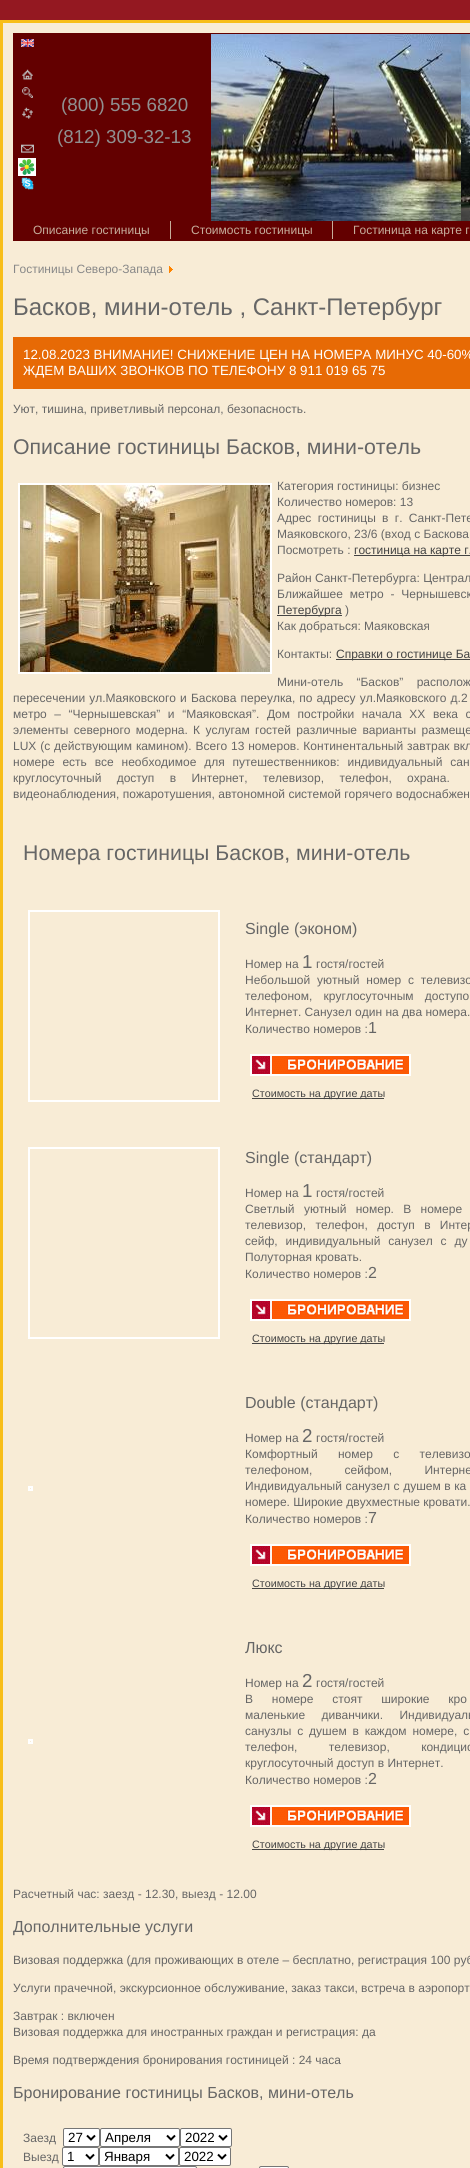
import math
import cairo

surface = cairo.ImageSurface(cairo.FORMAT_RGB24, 470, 2168)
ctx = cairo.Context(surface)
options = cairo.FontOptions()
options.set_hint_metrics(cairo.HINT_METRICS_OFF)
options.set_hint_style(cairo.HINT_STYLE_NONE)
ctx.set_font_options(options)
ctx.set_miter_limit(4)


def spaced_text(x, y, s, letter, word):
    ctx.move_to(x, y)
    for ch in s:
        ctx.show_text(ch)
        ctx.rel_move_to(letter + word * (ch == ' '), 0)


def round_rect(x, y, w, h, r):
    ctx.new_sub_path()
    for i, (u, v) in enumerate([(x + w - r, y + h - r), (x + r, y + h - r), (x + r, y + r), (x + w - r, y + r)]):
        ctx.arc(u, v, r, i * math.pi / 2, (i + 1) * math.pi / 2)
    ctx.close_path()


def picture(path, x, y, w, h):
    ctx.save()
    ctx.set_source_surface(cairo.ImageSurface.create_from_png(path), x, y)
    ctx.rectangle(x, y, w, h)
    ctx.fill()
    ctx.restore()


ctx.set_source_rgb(0.58, 0.094, 0.129)
ctx.paint()
ctx.set_source_rgb(0.969, 0.922, 0.839)
ctx.rectangle(1.5, 21.5, 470, 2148)
ctx.fill_preserve()
ctx.set_source_rgb(0.969, 0.745, 0.094)
ctx.set_line_width(3)
ctx.stroke()
ctx.set_source_rgb(0.388, 0, 0)
ctx.rectangle(13, 33, 457, 208)
ctx.fill()
picture("img1.png", 21, 39, 13, 8)
picture("img2.png", 22, 69, 11, 11)
picture("img3.png", 22, 87, 11, 11)
picture("img4.png", 22, 107, 11, 12)
picture("img5.png", 21, 144, 13, 9)
picture("img6.png", 18, 158, 18, 18)
picture("img7.png", 21, 177, 13, 13)
ctx.select_font_face("Liberation Sans")
ctx.set_font_size(18.75)
ctx.set_source_rgb(0.565, 0.565, 0.565)
ctx.move_to(61, 111)
ctx.show_text("(800) 555 6820")
ctx.move_to(57, 143)
ctx.show_text("(812) 309-32-13")
picture("img8.png", 211, 34, 250, 187)
picture("img9.png", 461, 34, 9, 187)
ctx.set_source_rgb(0.776, 0.682, 0.612)
ctx.rectangle(170, 221, 1, 18)
ctx.fill()
ctx.set_font_size(12)
ctx.move_to(33, 234)
ctx.show_text("Описание гостиницы")
ctx.rectangle(332, 221, 1, 18)
ctx.fill()
ctx.move_to(191, 234)
ctx.show_text("Стоимость гостиницы")
ctx.move_to(353, 234)
ctx.show_text("Гостиница на карте г")
ctx.set_source_rgb(0.533, 0.533, 0.533)
ctx.move_to(13, 273)
ctx.show_text("Гостиницы Северо-Запада")
picture("img10.png", 169, 266, 4, 7)
ctx.set_font_size(24)
ctx.set_source_rgb(0.4, 0.4, 0.4)
ctx.move_to(13, 315)
ctx.show_text("Басков, мини-отель , Санкт-Петербург")
ctx.set_source_rgb(0.906, 0.416, 0.02)
ctx.rectangle(13, 337, 457, 52)
ctx.fill()
ctx.set_font_size(13.35)
ctx.set_source_rgb(1, 1, 1)
ctx.move_to(23, 359)
ctx.show_text("12.08.2023 ВНИМАНИЕ! СНИЖЕНИЕ ЦЕН НА НОМЕРА МИНУС 40-60%")
ctx.move_to(23, 375)
ctx.show_text("ЖДЕМ ВАШИХ ЗВОНКОВ ПО ТЕЛЕФОНУ 8 911 019 65 75")
ctx.set_font_size(12)
ctx.set_source_rgb(0.4, 0.4, 0.4)
ctx.move_to(13, 413)
ctx.show_text("Уют, тишина, приветливый персонал, безопасность.")
ctx.set_font_size(21.3)
ctx.move_to(13, 454)
ctx.show_text("Описание гостиницы Басков, мини-отель")
ctx.rectangle(19, 484, 252, 189)
ctx.set_source_rgb(1, 1, 1)
ctx.set_line_width(2)
ctx.stroke()
picture("img11.png", 20, 485, 250, 187)
ctx.set_font_size(12)
ctx.set_source_rgb(0.4, 0.4, 0.4)
ctx.move_to(277, 490)
ctx.show_text("Категория гостиницы: бизнес")
ctx.move_to(277, 506)
ctx.show_text("Количество номеров: 13")
spaced_text(277, 522, "Адрес гостиницы в г. Санкт-Пете", 0, 3)
ctx.move_to(277, 538)
ctx.show_text("Маяковского, 23/6 (вход с Баскова")
ctx.move_to(277, 554)
ctx.show_text("Посмотреть :")
ctx.set_source_rgb(0.267, 0.267, 0.267)
ctx.rectangle(354, 555, 116, 1)
ctx.fill()
ctx.move_to(354, 554)
ctx.show_text("гостиница на карте г.")
ctx.set_source_rgb(0.4, 0.4, 0.4)
ctx.move_to(277, 582)
ctx.show_text("Район Санкт-Петербурга: Централ")
spaced_text(277, 598, "Ближайшее метро - Чернышевск", 0, 3.5)
ctx.set_source_rgb(0.267, 0.267, 0.267)
ctx.rectangle(277, 615, 65, 1)
ctx.fill()
ctx.move_to(277, 614)
ctx.show_text("Петербурга")
ctx.set_source_rgb(0.4, 0.4, 0.4)
ctx.move_to(345, 614)
ctx.show_text(")")
ctx.move_to(277, 630)
ctx.show_text("Как добраться: Маяковская")
ctx.move_to(277, 658)
ctx.show_text("Контакты:")
ctx.set_source_rgb(0.267, 0.267, 0.267)
ctx.rectangle(336, 659, 134, 1)
ctx.fill()
ctx.move_to(336, 658)
ctx.show_text("Справки о гостинице Ба")
ctx.set_source_rgb(0.4, 0.4, 0.4)
spaced_text(277, 686, "Мини-отель “Басков” располож", 0, 10)
spaced_text(13, 702, "пересечении ул.Маяковского и Баскова переулка, по адресу ул.Маяковского д.2", 0, 0.75)
spaced_text(13, 718, "метро – “Чернышевская” и “Маяковская”. Дом постройки начала XX века с", 0, 4.25)
spaced_text(13, 734, "элементы северного модерна. К услугам гостей различные варианты размеще", 0, 2)
spaced_text(13, 750, "LUX (с действующим камином). Всего 13 номеров. Континентальный завтрак вкл", 0, 0.5)
spaced_text(13, 766, "номере есть все необходимое для путешественников: индивидуальный сан", 0, 4.5)
spaced_text(13, 782, "круглосуточный доступ в Интернет, телевизор, телефон, охрана.", 0, 12)
ctx.move_to(13, 798)
ctx.show_text("видеонаблюдения, пожаротушения, автономной системой горячего водоснабжен")
ctx.set_font_size(21.3)
ctx.move_to(23, 860)
ctx.show_text("Номера гостиницы Басков, мини-отель")
ctx.rectangle(29, 911, 190, 190)
ctx.set_source_rgb(1, 1, 1)
ctx.stroke()
ctx.set_font_size(16)
ctx.set_source_rgb(0.4, 0.4, 0.4)
ctx.move_to(245, 934)
ctx.show_text("Single (эконом)")
ctx.set_font_size(12)
ctx.move_to(245, 968)
ctx.show_text("Номер на")
ctx.set_font_size(18.75)
ctx.move_to(302, 968)
ctx.show_text("1")
ctx.set_font_size(12)
ctx.move_to(316, 968)
ctx.show_text("гостя/гостей")
spaced_text(245, 984, "Небольшой уютный номер с телевизо", 0, 3.5)
spaced_text(245, 1000, "телефоном, круглосуточным доступо", 0, 8)
ctx.move_to(245, 1016)
ctx.show_text("Интернет. Санузел один на два номера.")
ctx.move_to(245, 1033)
ctx.show_text("Количество номеров :")
ctx.set_font_size(16)
ctx.move_to(368, 1033)
ctx.show_text("1")
ctx.rectangle(251, 1055, 159, 20)
ctx.set_source_rgb(1, 1, 1)
ctx.stroke()
picture("img12.png", 252, 1056, 157, 18)
ctx.set_source_rgb(0.267, 0.267, 0.267)
ctx.rectangle(252, 1098, 132, 1)
ctx.fill()
ctx.set_font_size(10.75)
ctx.move_to(252, 1097)
ctx.show_text("Стоимость на другие даты")
ctx.rectangle(29, 1148, 190, 190)
ctx.set_source_rgb(1, 1, 1)
ctx.stroke()
ctx.set_font_size(16)
ctx.set_source_rgb(0.4, 0.4, 0.4)
ctx.move_to(245, 1163)
ctx.show_text("Single (стандарт)")
ctx.set_font_size(12)
ctx.move_to(245, 1197)
ctx.show_text("Номер на")
ctx.set_font_size(18.75)
ctx.move_to(302, 1197)
ctx.show_text("1")
ctx.set_font_size(12)
ctx.move_to(316, 1197)
ctx.show_text("гостя/гостей")
spaced_text(245, 1213, "Светлый уютный номер. В номере", 0, 6)
spaced_text(245, 1229, "телевизор, телефон, доступ в Интер", 0, 6)
spaced_text(245, 1245, "сейф, индивидуальный санузел с ду", 0, 4.5)
ctx.move_to(245, 1261)
ctx.show_text("Полуторная кровать.")
ctx.move_to(245, 1278)
ctx.show_text("Количество номеров :")
ctx.set_font_size(16)
ctx.move_to(368, 1278)
ctx.show_text("2")
ctx.rectangle(251, 1300, 159, 20)
ctx.set_source_rgb(1, 1, 1)
ctx.stroke()
picture("img12.png", 252, 1301, 157, 18)
ctx.set_source_rgb(0.267, 0.267, 0.267)
ctx.rectangle(252, 1343, 132, 1)
ctx.fill()
ctx.set_font_size(10.75)
ctx.move_to(252, 1342)
ctx.show_text("Стоимость на другие даты")
ctx.rectangle(29, 1487, 3, 3)
ctx.set_source_rgb(1, 1, 1)
ctx.stroke()
ctx.set_font_size(16)
ctx.set_source_rgb(0.4, 0.4, 0.4)
ctx.move_to(245, 1408)
ctx.show_text("Double (стандарт)")
ctx.set_font_size(12)
ctx.move_to(245, 1442)
ctx.show_text("Номер на")
ctx.set_font_size(18.75)
ctx.move_to(302, 1442)
ctx.show_text("2")
ctx.set_font_size(12)
ctx.move_to(316, 1442)
ctx.show_text("гостя/гостей")
spaced_text(245, 1458, "Комфортный номер с телевизо", 0, 17)
spaced_text(245, 1474, "телефоном, сейфом, Интерне", 0, 29)
spaced_text(245, 1490, "Индивидуальный санузел с душем в ка", 0, 0.25)
ctx.move_to(245, 1506)
ctx.show_text("номере. Широкие двухместные кровати.")
ctx.move_to(245, 1523)
ctx.show_text("Количество номеров :")
ctx.set_font_size(16)
ctx.move_to(368, 1523)
ctx.show_text("7")
ctx.rectangle(251, 1545, 159, 20)
ctx.set_source_rgb(1, 1, 1)
ctx.stroke()
picture("img12.png", 252, 1546, 157, 18)
ctx.set_source_rgb(0.267, 0.267, 0.267)
ctx.rectangle(252, 1588, 132, 1)
ctx.fill()
ctx.set_font_size(10.75)
ctx.move_to(252, 1587)
ctx.show_text("Стоимость на другие даты")
ctx.rectangle(29, 1740, 3, 3)
ctx.set_source_rgb(1, 1, 1)
ctx.stroke()
ctx.set_font_size(16)
ctx.set_source_rgb(0.4, 0.4, 0.4)
ctx.move_to(245, 1653)
ctx.show_text("Люкс")
ctx.set_font_size(12)
ctx.move_to(245, 1687)
ctx.show_text("Номер на")
ctx.set_font_size(18.75)
ctx.move_to(302, 1687)
ctx.show_text("2")
ctx.set_font_size(12)
ctx.move_to(316, 1687)
ctx.show_text("гостя/гостей")
spaced_text(245, 1703, "В номере стоят широкие кро", 0, 15.5)
spaced_text(245, 1719, "маленькие диванчики. Индивидуаль", 0, 13)
spaced_text(245, 1735, "санузлы с душем в каждом номере, с", 0, 2.5)
spaced_text(245, 1751, "телефон, телевизор, кондицио", 0, 28)
ctx.move_to(245, 1767)
ctx.show_text("круглосуточный доступ в Интернет.")
ctx.move_to(245, 1784)
ctx.show_text("Количество номеров :")
ctx.set_font_size(16)
ctx.move_to(368, 1784)
ctx.show_text("2")
ctx.rectangle(251, 1806, 159, 20)
ctx.set_source_rgb(1, 1, 1)
ctx.stroke()
picture("img12.png", 252, 1807, 157, 18)
ctx.set_source_rgb(0.267, 0.267, 0.267)
ctx.rectangle(252, 1849, 132, 1)
ctx.fill()
ctx.set_font_size(10.75)
ctx.move_to(252, 1848)
ctx.show_text("Стоимость на другие даты")
ctx.set_font_size(12)
ctx.set_source_rgb(0.4, 0.4, 0.4)
ctx.move_to(13, 1898)
ctx.show_text("Расчетный час: заезд - 12.30, выезд - 12.00")
ctx.set_font_size(16)
ctx.move_to(13, 1932)
ctx.show_text("Дополнительные услуги")
ctx.set_font_size(12)
ctx.move_to(13, 1964)
ctx.show_text("Визовая поддержка (для проживающих в отеле – бесплатно, регистрация 100 руб")
ctx.move_to(13, 1992)
ctx.show_text("Услуги прачечной, экскурсионное обслуживание, заказ такси, встреча в аэропорт")
ctx.move_to(13, 2020)
ctx.show_text("Завтрак : включен")
ctx.move_to(13, 2036)
ctx.show_text("Визовая поддержка для иностранных граждан и регистрация: да")
ctx.move_to(13, 2064)
ctx.show_text("Время подтверждения бронирования гостиницей : 24 часа")
ctx.set_font_size(16)
ctx.move_to(13, 2098)
ctx.show_text("Бронирование гостиницы Басков, мини-отель")
ctx.set_font_size(12)
ctx.move_to(23, 2142)
ctx.show_text("Заезд")
ctx.set_source_rgb(1, 1, 1)
round_rect(63.5, 2128.5, 36, 18, 1.5)
ctx.fill_preserve()
ctx.set_source_rgb(0.463, 0.463, 0.463)
ctx.set_line_width(1)
ctx.stroke()
ctx.new_path()
ctx.move_to(87, 2135.5)
ctx.line_to(91, 2139.5)
ctx.line_to(95, 2135.5)
ctx.set_source_rgb(0, 0, 0)
ctx.set_line_width(2)
ctx.stroke()
ctx.set_font_size(13.35)
ctx.move_to(68, 2142)
ctx.show_text("27")
ctx.set_source_rgb(1, 1, 1)
round_rect(100.5, 2128.5, 79, 18, 1.5)
ctx.fill_preserve()
ctx.set_source_rgb(0.463, 0.463, 0.463)
ctx.set_line_width(1)
ctx.stroke()
ctx.new_path()
ctx.move_to(167, 2135.5)
ctx.line_to(171, 2139.5)
ctx.line_to(175, 2135.5)
ctx.set_source_rgb(0, 0, 0)
ctx.set_line_width(2)
ctx.stroke()
ctx.move_to(105, 2142)
ctx.show_text("Апреля")
ctx.set_source_rgb(1, 1, 1)
round_rect(180.5, 2128.5, 51, 18, 1.5)
ctx.fill_preserve()
ctx.set_source_rgb(0.463, 0.463, 0.463)
ctx.set_line_width(1)
ctx.stroke()
ctx.new_path()
ctx.move_to(219, 2135.5)
ctx.line_to(223, 2139.5)
ctx.line_to(227, 2135.5)
ctx.set_source_rgb(0, 0, 0)
ctx.set_line_width(2)
ctx.stroke()
ctx.move_to(185, 2142)
ctx.show_text("2022")
ctx.set_font_size(12)
ctx.set_source_rgb(0.4, 0.4, 0.4)
ctx.move_to(23, 2161)
ctx.show_text("Выезд")
ctx.set_source_rgb(1, 1, 1)
round_rect(62.5, 2147.5, 36, 18, 1.5)
ctx.fill_preserve()
ctx.set_source_rgb(0.463, 0.463, 0.463)
ctx.set_line_width(1)
ctx.stroke()
ctx.new_path()
ctx.move_to(86, 2154.5)
ctx.line_to(90, 2158.5)
ctx.line_to(94, 2154.5)
ctx.set_source_rgb(0, 0, 0)
ctx.set_line_width(2)
ctx.stroke()
ctx.set_font_size(13.35)
ctx.move_to(67, 2161)
ctx.show_text("1")
ctx.set_source_rgb(1, 1, 1)
round_rect(99.5, 2147.5, 79, 18, 1.5)
ctx.fill_preserve()
ctx.set_source_rgb(0.463, 0.463, 0.463)
ctx.set_line_width(1)
ctx.stroke()
ctx.new_path()
ctx.move_to(166, 2154.5)
ctx.line_to(170, 2158.5)
ctx.line_to(174, 2154.5)
ctx.set_source_rgb(0, 0, 0)
ctx.set_line_width(2)
ctx.stroke()
ctx.move_to(104, 2161)
ctx.show_text("Января")
ctx.set_source_rgb(1, 1, 1)
round_rect(179.5, 2147.5, 51, 18, 1.5)
ctx.fill_preserve()
ctx.set_source_rgb(0.463, 0.463, 0.463)
ctx.set_line_width(1)
ctx.stroke()
ctx.new_path()
ctx.move_to(218, 2154.5)
ctx.line_to(222, 2158.5)
ctx.line_to(226, 2154.5)
ctx.set_source_rgb(0, 0, 0)
ctx.set_line_width(2)
ctx.stroke()
ctx.move_to(184, 2161)
ctx.show_text("2022")
ctx.set_source_rgb(1, 1, 1)
round_rect(63.5, 2166.5, 133, 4, 1.5)
ctx.fill_preserve()
ctx.set_source_rgb(0.463, 0.463, 0.463)
ctx.set_line_width(1)
ctx.stroke()
ctx.set_source_rgb(1, 1, 1)
round_rect(259.5, 2166.5, 29, 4, 1.5)
ctx.fill_preserve()
ctx.set_source_rgb(0.463, 0.463, 0.463)
ctx.stroke()
surface.write_to_png("page.png")
